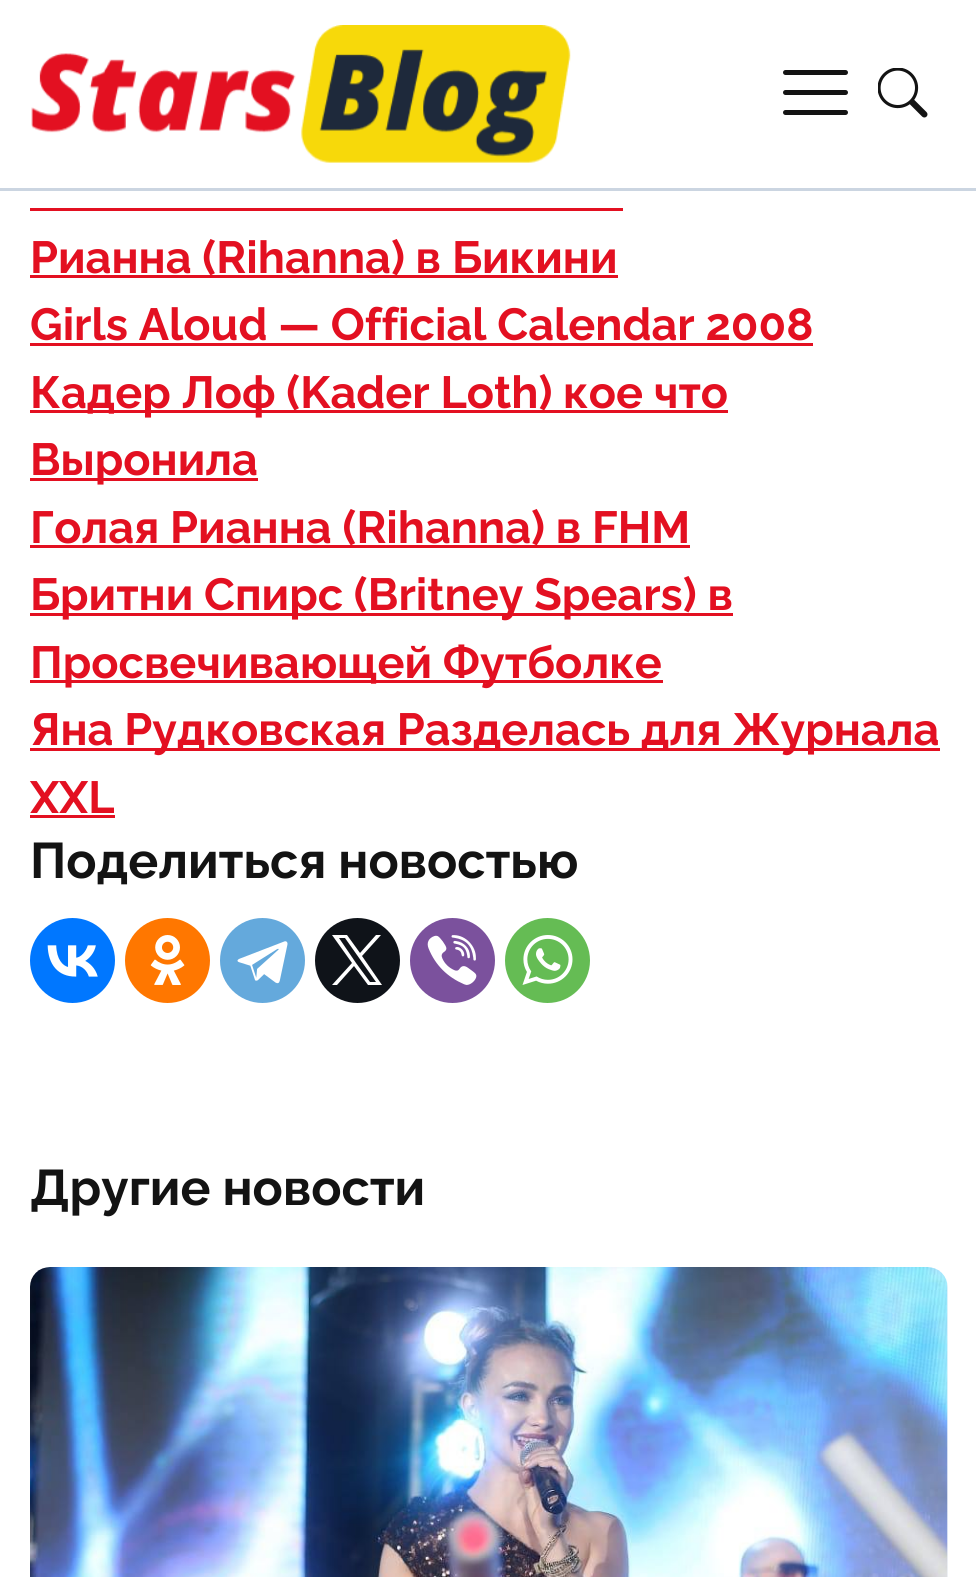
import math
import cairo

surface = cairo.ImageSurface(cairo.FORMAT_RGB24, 976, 1577)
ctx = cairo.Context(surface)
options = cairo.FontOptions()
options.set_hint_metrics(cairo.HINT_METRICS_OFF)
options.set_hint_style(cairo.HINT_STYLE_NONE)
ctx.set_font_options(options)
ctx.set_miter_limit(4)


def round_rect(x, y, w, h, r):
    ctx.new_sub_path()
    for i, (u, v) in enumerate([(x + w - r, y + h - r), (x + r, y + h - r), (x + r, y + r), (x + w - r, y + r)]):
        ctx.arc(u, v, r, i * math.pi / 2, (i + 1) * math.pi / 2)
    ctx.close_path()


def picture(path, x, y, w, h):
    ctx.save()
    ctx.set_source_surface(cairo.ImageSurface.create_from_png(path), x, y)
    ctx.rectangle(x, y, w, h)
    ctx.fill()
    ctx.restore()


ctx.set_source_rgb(1, 1, 1)
ctx.paint()
ctx.set_source_rgb(0.796, 0.835, 0.882)
ctx.rectangle(0, 188, 976, 3)
ctx.fill()
picture("img1.png", 31, 25, 540, 138)
ctx.set_source_rgb(0.075, 0.075, 0.075)
round_rect(783, 90, 65, 5, 2.5)
ctx.fill()
round_rect(783, 70, 65, 5, 2.5)
ctx.fill()
round_rect(783, 110, 65, 5, 2.5)
ctx.fill()
picture("img2.png", 878, 68, 50, 50)
ctx.set_source_rgb(0.89, 0.063, 0.129)
ctx.rectangle(30, 208, 593, 3)
ctx.fill()
ctx.rectangle(30, 275, 588, 3)
ctx.fill()
ctx.select_font_face("Raleway", cairo.FONT_SLANT_NORMAL, cairo.FONT_WEIGHT_BOLD)
ctx.set_font_size(45)
ctx.move_to(30, 273)
ctx.show_text("Рианна (Rihanna) в Бикини")
ctx.move_to(30, 340)
ctx.show_text("Girls Aloud — Official Calendar 2008")
ctx.rectangle(30, 343, 783, 3)
ctx.fill()
ctx.rectangle(30, 410, 698, 3)
ctx.fill()
ctx.move_to(30, 408)
ctx.show_text("Кадер Лоф (Kader Loth) кое что")
ctx.rectangle(30, 478, 228, 3)
ctx.fill()
ctx.move_to(30, 475)
ctx.show_text("Выронила")
ctx.rectangle(30, 545, 660, 3)
ctx.fill()
ctx.move_to(30, 543)
ctx.show_text("Голая Рианна (Rihanna) в FHM")
ctx.rectangle(30, 613, 703, 3)
ctx.fill()
ctx.move_to(30, 610)
ctx.show_text("Бритни Спирс (Britney Spears) в")
ctx.rectangle(30, 680, 633, 3)
ctx.fill()
ctx.move_to(30, 678)
ctx.show_text("Просвечивающей Футболке")
ctx.rectangle(30, 748, 910, 3)
ctx.fill()
ctx.move_to(30, 745)
ctx.show_text("Яна Рудковская Разделась для Журнала")
ctx.move_to(30, 813)
ctx.show_text("XXL")
ctx.rectangle(30, 815, 85, 3)
ctx.fill()
ctx.set_font_size(50)
ctx.set_source_rgb(0.075, 0.075, 0.075)
ctx.move_to(30, 878)
ctx.show_text("Поделиться новостью")
ctx.set_source_rgb(0, 0.467, 1)
ctx.new_path()
ctx.arc(72.5, 960.5, 42.5, 0, 2 * math.pi)
ctx.fill()
picture("img3.png", 47, 945, 51, 32)
ctx.set_source_rgb(1, 0.467, 0)
ctx.arc(167.5, 960.5, 42.5, 0, 2 * math.pi)
ctx.fill()
picture("img4.png", 150, 935, 35, 50)
ctx.set_source_rgb(0.392, 0.663, 0.863)
ctx.arc(262.5, 960.5, 42.5, 0, 2 * math.pi)
ctx.fill()
picture("img5.png", 237, 941, 51, 43)
ctx.set_source_rgb(0.059, 0.078, 0.098)
ctx.arc(357.5, 960.5, 42.5, 0, 2 * math.pi)
ctx.fill()
ctx.set_source_rgb(1, 1, 1)
ctx.new_path()
ctx.move_to(362, 956)
ctx.line_to(381, 935)
ctx.line_to(376, 935)
ctx.line_to(360, 953)
ctx.line_to(347, 935)
ctx.line_to(332, 935)
ctx.line_to(352, 963)
ctx.line_to(332, 985)
ctx.line_to(337, 985)
ctx.line_to(354, 966)
ctx.line_to(368, 985)
ctx.line_to(382, 985)
ctx.close_path()
ctx.move_to(356, 963)
ctx.line_to(339, 938)
ctx.line_to(345, 938)
ctx.line_to(376, 982)
ctx.line_to(370, 982)
ctx.close_path()
ctx.fill()
ctx.set_source_rgb(0.482, 0.318, 0.616)
ctx.arc(452.5, 960.5, 42.5, 0, 2 * math.pi)
ctx.fill()
picture("img6.png", 427, 935, 50, 50)
ctx.set_source_rgb(0.396, 0.737, 0.329)
ctx.arc(547.5, 960.5, 42.5, 0, 2 * math.pi)
ctx.fill()
picture("img7.png", 522, 935, 51, 50)
ctx.set_source_rgb(0.075, 0.075, 0.075)
ctx.move_to(30, 1205)
ctx.show_text("Другие новости")
ctx.set_source_rgb(0.945, 0.961, 0.976)
round_rect(30, 1268, 918, 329, 20)
ctx.fill()
picture("img8.png", 30, 1267, 918, 310)
surface.write_to_png("page.png")
